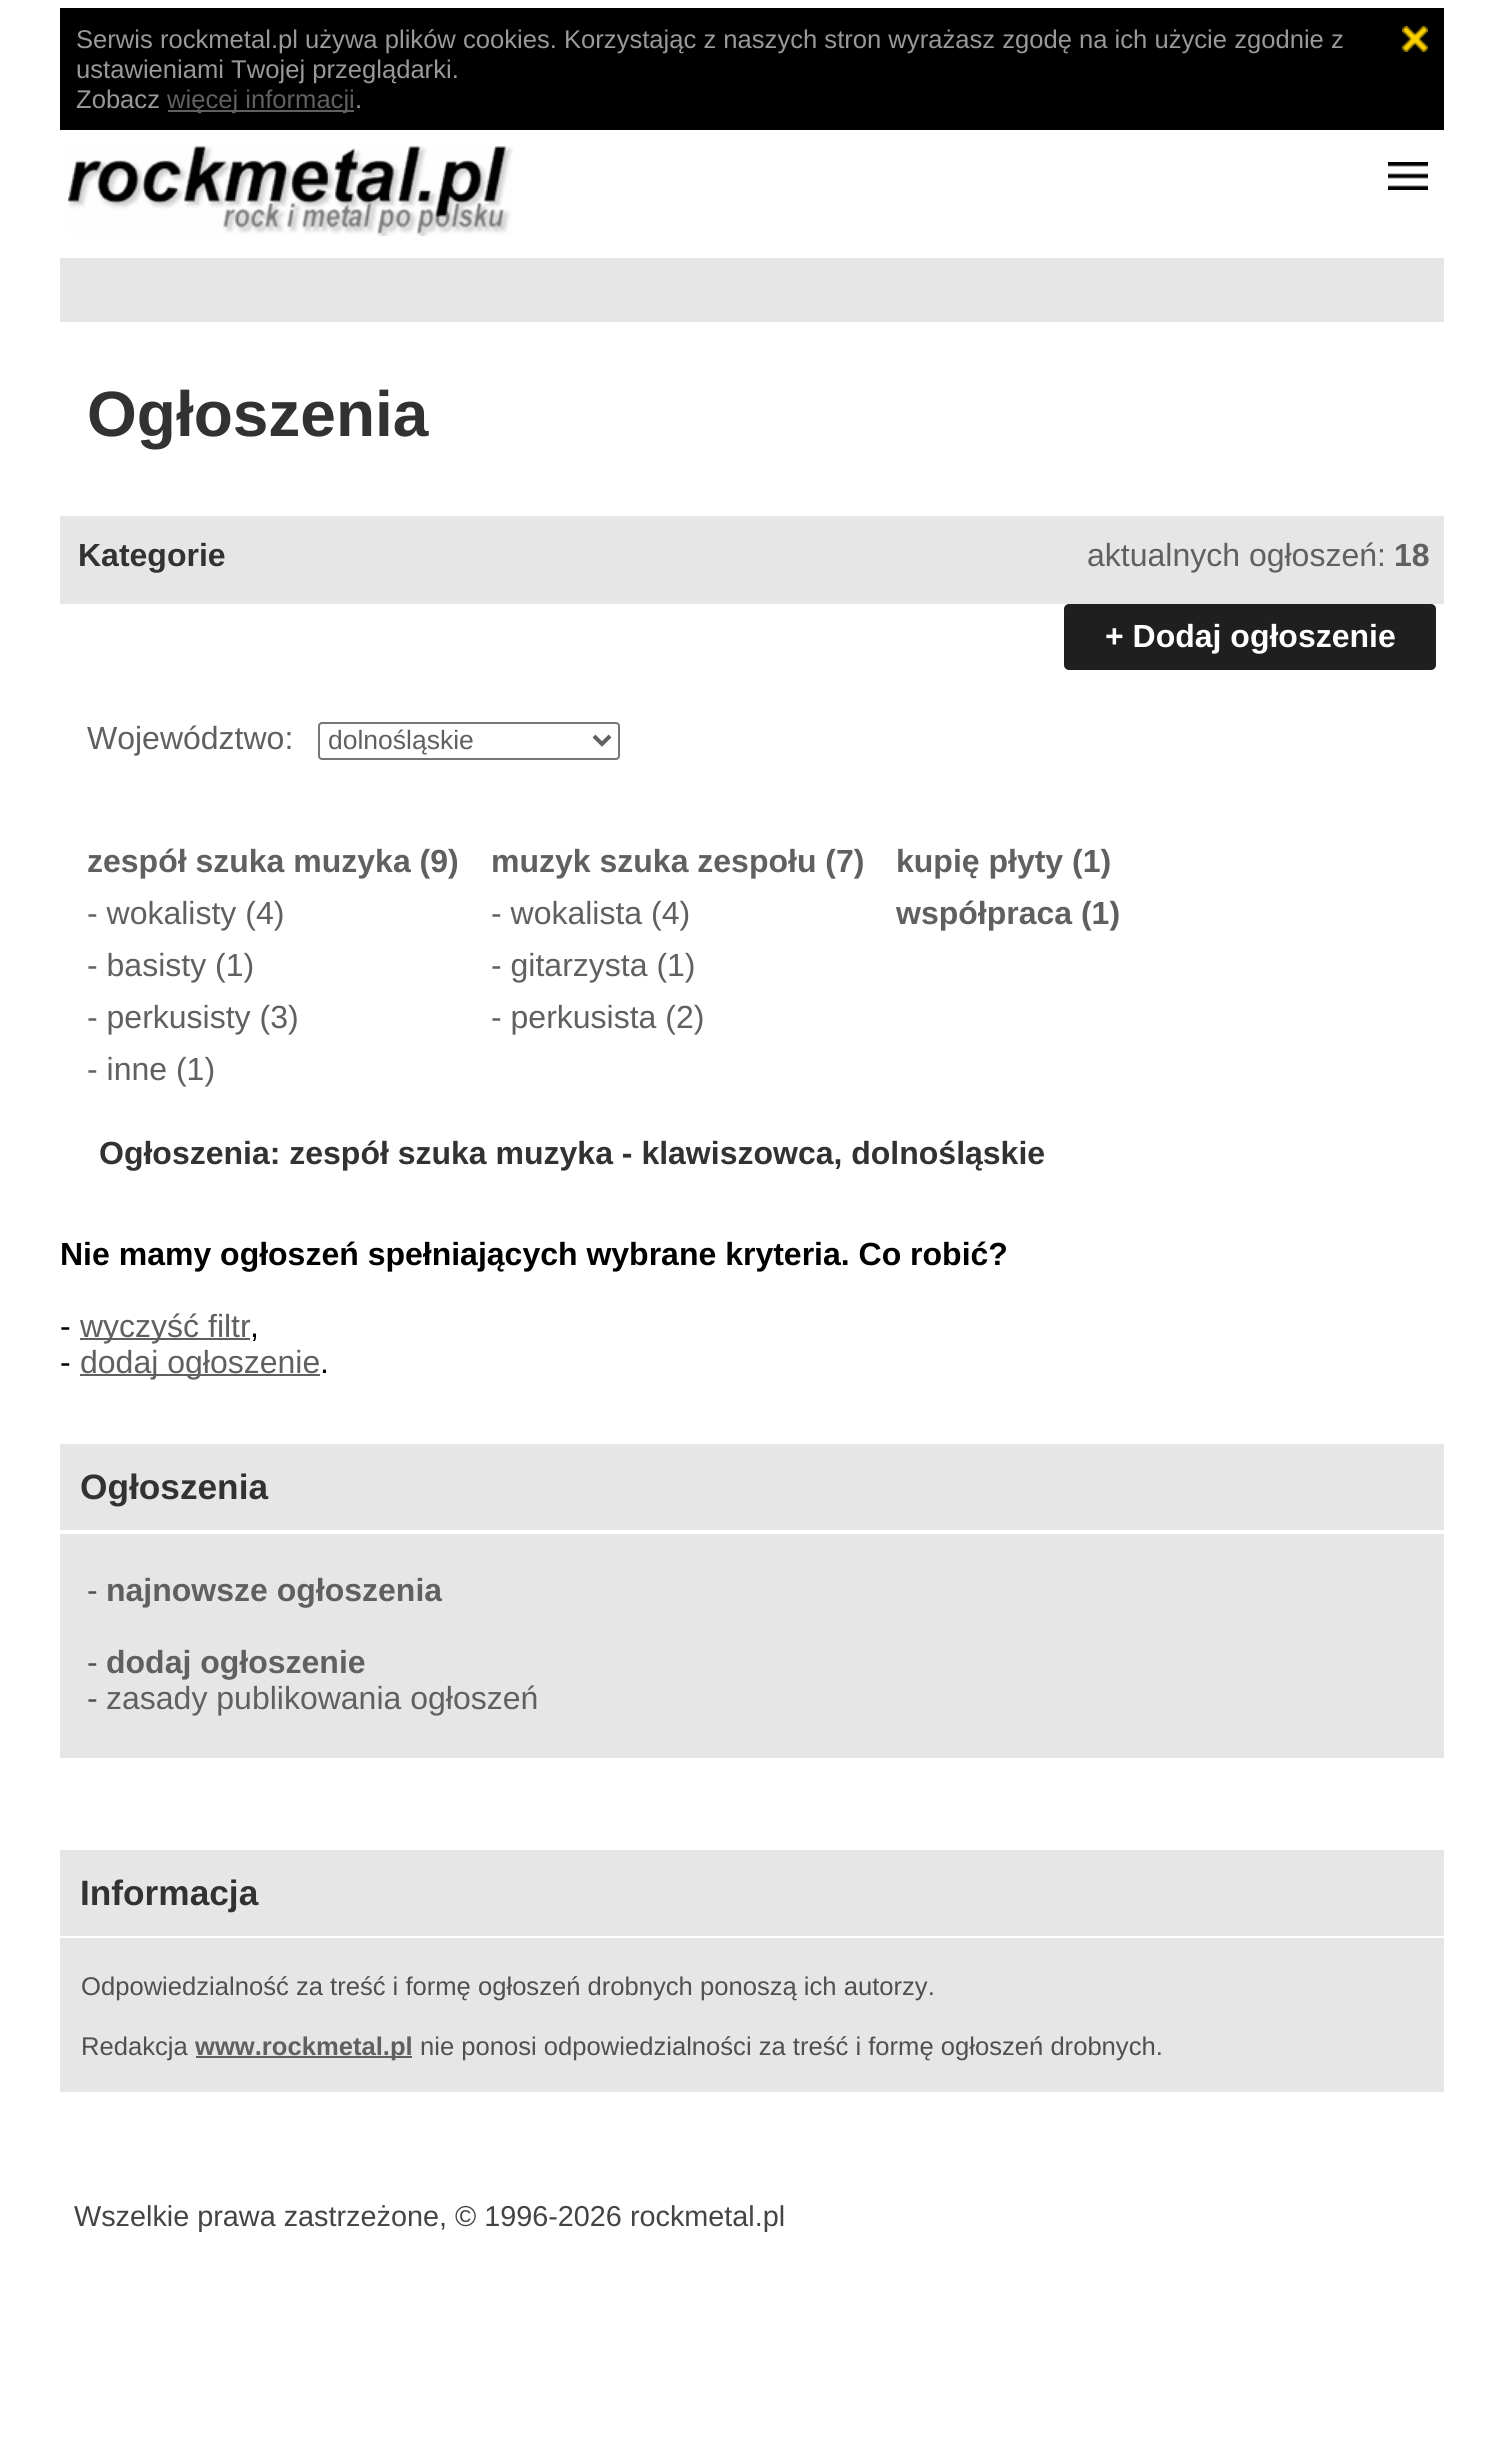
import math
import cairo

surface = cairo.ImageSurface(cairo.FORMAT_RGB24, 1503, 2445)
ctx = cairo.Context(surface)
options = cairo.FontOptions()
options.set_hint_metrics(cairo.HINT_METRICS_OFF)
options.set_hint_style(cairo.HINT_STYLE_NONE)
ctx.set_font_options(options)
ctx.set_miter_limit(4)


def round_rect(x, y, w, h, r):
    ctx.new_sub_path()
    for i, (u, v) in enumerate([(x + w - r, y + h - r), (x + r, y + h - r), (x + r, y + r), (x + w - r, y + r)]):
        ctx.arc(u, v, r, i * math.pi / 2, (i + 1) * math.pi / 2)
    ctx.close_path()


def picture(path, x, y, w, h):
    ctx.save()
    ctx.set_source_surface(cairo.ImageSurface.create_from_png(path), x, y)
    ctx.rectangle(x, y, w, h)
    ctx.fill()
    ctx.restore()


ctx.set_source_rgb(1, 1, 1)
ctx.paint()
ctx.set_source_rgb(0, 0, 0)
ctx.rectangle(60, 8, 1384, 122)
ctx.fill()
ctx.select_font_face("Liberation Sans")
ctx.set_font_size(25.6)
ctx.set_source_rgb(0.6, 0.6, 0.6)
ctx.move_to(76, 48)
ctx.show_text("Serwis rockmetal.pl używa plików cookies. Korzystając z naszych stron wyrażasz zgodę na ich użycie zgodnie z")
ctx.move_to(76, 78)
ctx.show_text("ustawieniami Twojej przeglądarki.")
ctx.move_to(76, 108)
ctx.show_text("Zobacz")
ctx.set_source_rgb(0.376, 0.376, 0.376)
ctx.rectangle(168, 110, 186, 2)
ctx.fill()
ctx.move_to(167, 108)
ctx.show_text("więcej informacji")
ctx.set_source_rgb(0.6, 0.6, 0.6)
ctx.move_to(355, 108)
ctx.show_text(".")
picture("img1.png", 1402, 26, 26, 26)
picture("img2.png", 68, 146, 445, 90)
picture("img3.png", 1388, 162, 40, 28)
ctx.set_source_rgb(0.902, 0.902, 0.902)
ctx.rectangle(60, 258, 1384, 64)
ctx.fill()
ctx.select_font_face("Liberation Sans", cairo.FONT_SLANT_NORMAL, cairo.FONT_WEIGHT_BOLD)
ctx.set_font_size(64)
ctx.set_source_rgb(0.196, 0.196, 0.196)
ctx.move_to(87, 436)
ctx.show_text("Ogłoszenia")
ctx.set_source_rgb(0.902, 0.902, 0.902)
ctx.rectangle(60, 516, 1384, 88)
ctx.fill()
ctx.set_font_size(32)
ctx.set_source_rgb(0.196, 0.196, 0.196)
ctx.move_to(78, 566)
ctx.show_text("Kategorie")
ctx.select_font_face("Liberation Sans")
ctx.set_source_rgb(0.376, 0.376, 0.376)
ctx.move_to(1087, 566)
ctx.show_text("aktualnych ogłoszeń:")
ctx.select_font_face("Liberation Sans", cairo.FONT_SLANT_NORMAL, cairo.FONT_WEIGHT_BOLD)
ctx.move_to(1394, 566)
ctx.show_text("18")
ctx.set_source_rgb(0.122, 0.122, 0.122)
round_rect(1064, 604, 372, 66, 5)
ctx.fill()
ctx.set_source_rgb(1, 1, 1)
ctx.move_to(1105, 647)
ctx.show_text("+ Dodaj ogłoszenie")
ctx.select_font_face("Liberation Sans")
ctx.set_source_rgb(0.376, 0.376, 0.376)
ctx.move_to(87, 749)
ctx.show_text("Województwo:")
round_rect(319, 723, 300, 36, 3)
ctx.set_source_rgb(0.463, 0.463, 0.463)
ctx.stroke()
ctx.new_path()
ctx.move_to(594, 736)
ctx.line_to(602, 744)
ctx.line_to(610, 736)
ctx.set_source_rgb(0.376, 0.376, 0.376)
ctx.set_line_width(4)
ctx.stroke()
ctx.set_font_size(26.5)
ctx.move_to(328, 749)
ctx.show_text("dolnośląskie")
ctx.select_font_face("Liberation Sans", cairo.FONT_SLANT_NORMAL, cairo.FONT_WEIGHT_BOLD)
ctx.set_font_size(32)
ctx.move_to(87, 872)
ctx.show_text("zespół szuka muzyka (9)")
ctx.select_font_face("Liberation Sans")
ctx.move_to(87, 924)
ctx.show_text("- wokalisty (4)")
ctx.move_to(87, 976)
ctx.show_text("- basisty (1)")
ctx.move_to(87, 1028)
ctx.show_text("- perkusisty (3)")
ctx.move_to(87, 1080)
ctx.show_text("- inne (1)")
ctx.select_font_face("Liberation Sans", cairo.FONT_SLANT_NORMAL, cairo.FONT_WEIGHT_BOLD)
ctx.move_to(491, 872)
ctx.show_text("muzyk szuka zespołu (7)")
ctx.select_font_face("Liberation Sans")
ctx.move_to(491, 924)
ctx.show_text("- wokalista (4)")
ctx.move_to(491, 976)
ctx.show_text("- gitarzysta (1)")
ctx.move_to(491, 1028)
ctx.show_text("- perkusista (2)")
ctx.select_font_face("Liberation Sans", cairo.FONT_SLANT_NORMAL, cairo.FONT_WEIGHT_BOLD)
ctx.move_to(896, 872)
ctx.show_text("kupię płyty (1)")
ctx.move_to(896, 924)
ctx.show_text("współpraca (1)")
ctx.set_source_rgb(0.196, 0.196, 0.196)
ctx.move_to(99, 1164)
ctx.show_text("Ogłoszenia: zespół szuka muzyka - klawiszowca, dolnośląskie")
ctx.set_source_rgb(0, 0, 0)
ctx.move_to(60, 1265)
ctx.show_text("Nie mamy ogłoszeń spełniających wybrane kryteria. Co robić?")
ctx.select_font_face("Liberation Sans")
ctx.move_to(60, 1337)
ctx.show_text("-")
ctx.set_source_rgb(0.376, 0.376, 0.376)
ctx.rectangle(80, 1338, 170, 2)
ctx.fill()
ctx.move_to(80, 1337)
ctx.show_text("wyczyść filtr")
ctx.set_source_rgb(0, 0, 0)
ctx.move_to(250, 1337)
ctx.show_text(",")
ctx.move_to(60, 1373)
ctx.show_text("-")
ctx.set_source_rgb(0.376, 0.376, 0.376)
ctx.rectangle(80, 1374, 240, 2)
ctx.fill()
ctx.move_to(80, 1373)
ctx.show_text("dodaj ogłoszenie")
ctx.set_source_rgb(0, 0, 0)
ctx.move_to(320, 1373)
ctx.show_text(".")
ctx.set_source_rgb(0.902, 0.902, 0.902)
ctx.rectangle(60, 1444, 1384, 86)
ctx.fill()
ctx.select_font_face("Liberation Sans", cairo.FONT_SLANT_NORMAL, cairo.FONT_WEIGHT_BOLD)
ctx.set_font_size(35.25)
ctx.set_source_rgb(0.196, 0.196, 0.196)
ctx.move_to(80, 1499)
ctx.show_text("Ogłoszenia")
ctx.set_source_rgb(0.902, 0.902, 0.902)
ctx.rectangle(60, 1534, 1384, 224)
ctx.fill()
ctx.select_font_face("Liberation Sans")
ctx.set_font_size(32)
ctx.set_source_rgb(0.314, 0.314, 0.314)
ctx.move_to(87, 1601)
ctx.show_text("-")
ctx.select_font_face("Liberation Sans", cairo.FONT_SLANT_NORMAL, cairo.FONT_WEIGHT_BOLD)
ctx.set_source_rgb(0.376, 0.376, 0.376)
ctx.move_to(106, 1601)
ctx.show_text("najnowsze ogłoszenia")
ctx.select_font_face("Liberation Sans")
ctx.set_source_rgb(0.314, 0.314, 0.314)
ctx.move_to(87, 1673)
ctx.show_text("-")
ctx.select_font_face("Liberation Sans", cairo.FONT_SLANT_NORMAL, cairo.FONT_WEIGHT_BOLD)
ctx.set_source_rgb(0.376, 0.376, 0.376)
ctx.move_to(106, 1673)
ctx.show_text("dodaj ogłoszenie")
ctx.select_font_face("Liberation Sans")
ctx.set_source_rgb(0.314, 0.314, 0.314)
ctx.move_to(87, 1709)
ctx.show_text("-")
ctx.set_source_rgb(0.376, 0.376, 0.376)
ctx.move_to(106, 1709)
ctx.show_text("zasady publikowania ogłoszeń")
ctx.set_source_rgb(0.902, 0.902, 0.902)
ctx.rectangle(60, 1850, 1384, 86)
ctx.fill()
ctx.select_font_face("Liberation Sans", cairo.FONT_SLANT_NORMAL, cairo.FONT_WEIGHT_BOLD)
ctx.set_font_size(35.25)
ctx.set_source_rgb(0.196, 0.196, 0.196)
ctx.move_to(80, 1905)
ctx.show_text("Informacja")
ctx.set_source_rgb(0.902, 0.902, 0.902)
ctx.rectangle(60, 1938, 1384, 154)
ctx.fill()
ctx.select_font_face("Liberation Sans")
ctx.set_font_size(25.6)
ctx.set_source_rgb(0.314, 0.314, 0.314)
ctx.move_to(81, 1995)
ctx.show_text("Odpowiedzialność za treść i formę ogłoszeń drobnych ponoszą ich autorzy.")
ctx.move_to(81, 2055)
ctx.show_text("Redakcja")
ctx.set_source_rgb(0.376, 0.376, 0.376)
ctx.rectangle(196, 2056, 216, 2)
ctx.fill()
ctx.select_font_face("Liberation Sans", cairo.FONT_SLANT_NORMAL, cairo.FONT_WEIGHT_BOLD)
ctx.move_to(195, 2055)
ctx.show_text("www.rockmetal.pl")
ctx.select_font_face("Liberation Sans")
ctx.set_source_rgb(0.314, 0.314, 0.314)
ctx.move_to(420, 2055)
ctx.show_text("nie ponosi odpowiedzialności za treść i formę ogłoszeń drobnych.")
ctx.set_font_size(28.8)
ctx.set_source_rgb(0.267, 0.267, 0.267)
ctx.move_to(74, 2226)
ctx.show_text("Wszelkie prawa zastrzeżone, © 1996-2026 rockmetal.pl")
surface.write_to_png("page.png")
